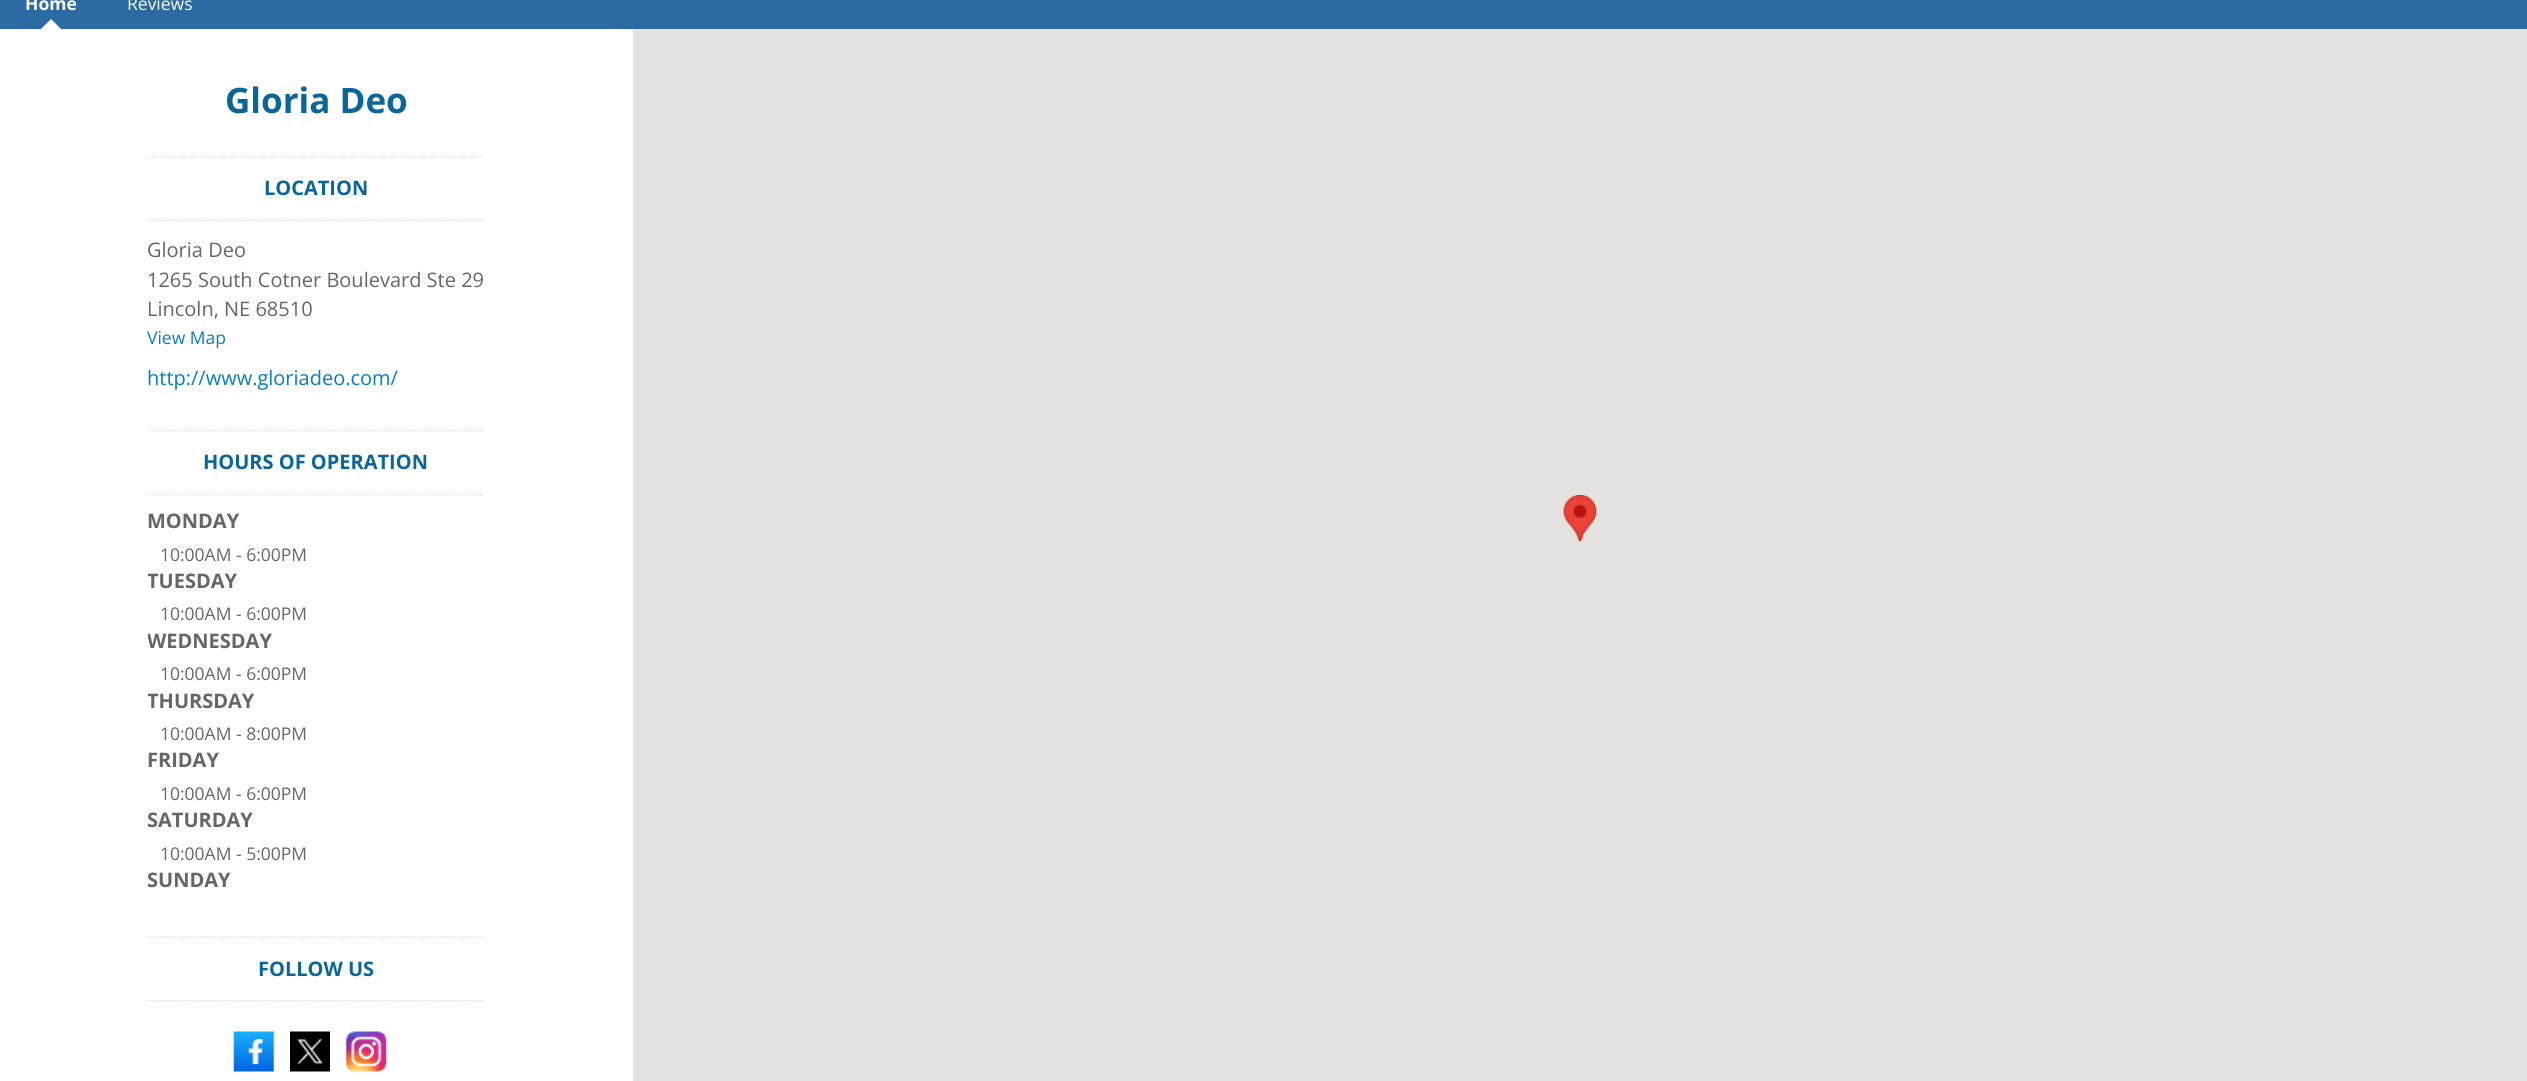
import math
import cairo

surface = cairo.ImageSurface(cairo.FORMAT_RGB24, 2527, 1081)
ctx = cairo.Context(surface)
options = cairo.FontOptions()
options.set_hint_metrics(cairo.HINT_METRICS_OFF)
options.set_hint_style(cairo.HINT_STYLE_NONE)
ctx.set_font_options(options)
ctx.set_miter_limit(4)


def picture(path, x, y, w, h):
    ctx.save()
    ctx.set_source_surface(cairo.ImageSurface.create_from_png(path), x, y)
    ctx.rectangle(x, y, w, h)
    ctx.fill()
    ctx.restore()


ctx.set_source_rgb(1, 1, 1)
ctx.paint()
ctx.set_source_rgb(0.169, 0.416, 0.639)
ctx.rectangle(0, 0, 2527, 29)
ctx.fill()
ctx.select_font_face("Open Sans", cairo.FONT_SLANT_NORMAL, cairo.FONT_WEIGHT_BOLD)
ctx.set_font_size(17.5)
ctx.set_source_rgb(1, 1, 1)
ctx.move_to(25, 10)
ctx.show_text("Home")
ctx.new_path()
ctx.move_to(61, 29)
ctx.line_to(41, 29)
ctx.line_to(51, 19)
ctx.close_path()
ctx.fill()
ctx.select_font_face("Open Sans")
ctx.move_to(127, 10)
ctx.show_text("Reviews")
ctx.select_font_face("Open Sans", cairo.FONT_SLANT_NORMAL, cairo.FONT_WEIGHT_BOLD)
ctx.set_font_size(35)
ctx.set_source_rgb(0.035, 0.4, 0.604)
ctx.move_to(225, 113)
ctx.show_text("Gloria Deo")
ctx.new_path()
ctx.move_to(147.5, 157)
ctx.line_to(485, 157)
ctx.set_source_rgb(0.855, 0.855, 0.855)
ctx.set_line_width(1.2)
ctx.set_dash([1.25, 1.25])
ctx.stroke()
ctx.new_path()
ctx.move_to(147.5, 220.5)
ctx.line_to(485, 220.5)
ctx.stroke()
ctx.set_font_size(20)
ctx.set_source_rgb(0.035, 0.4, 0.604)
ctx.move_to(264, 195)
ctx.show_text("LOCATION")
ctx.select_font_face("Open Sans")
ctx.set_source_rgb(0.4, 0.4, 0.4)
ctx.move_to(147, 257)
ctx.show_text("Gloria Deo")
ctx.move_to(147, 287)
ctx.show_text("1265 South Cotner Boulevard Ste 29")
ctx.move_to(147, 316)
ctx.show_text("Lincoln, NE 68510")
ctx.set_font_size(17.5)
ctx.set_source_rgb(0.02, 0.494, 0.757)
ctx.move_to(147, 344)
ctx.show_text("View Map")
ctx.set_font_size(20)
ctx.move_to(147, 385)
ctx.show_text("http://www.gloriadeo.com/")
ctx.save()
ctx.rectangle(148, 430, 337, 469)
ctx.clip()
ctx.new_path()
ctx.move_to(147.5, 430.5)
ctx.line_to(485, 430.5)
ctx.set_source_rgb(0.855, 0.855, 0.855)
ctx.stroke()
ctx.restore()
ctx.new_path()
ctx.move_to(147.5, 494.5)
ctx.line_to(485, 494.5)
ctx.set_source_rgb(0.855, 0.855, 0.855)
ctx.stroke()
ctx.select_font_face("Open Sans", cairo.FONT_SLANT_NORMAL, cairo.FONT_WEIGHT_BOLD)
ctx.set_source_rgb(0.035, 0.4, 0.604)
ctx.move_to(203, 469)
ctx.show_text("HOURS OF OPERATION")
ctx.set_source_rgb(0.4, 0.4, 0.4)
ctx.move_to(147, 528)
ctx.show_text("MONDAY")
ctx.select_font_face("Open Sans")
ctx.set_font_size(17.5)
ctx.move_to(160, 561)
ctx.show_text("10:00AM - 6:00PM")
ctx.save()
ctx.rectangle(148, 430, 337, 469)
ctx.clip()
ctx.select_font_face("Open Sans", cairo.FONT_SLANT_NORMAL, cairo.FONT_WEIGHT_BOLD)
ctx.set_font_size(20)
ctx.move_to(147, 588)
ctx.show_text("TUESDAY")
ctx.restore()
ctx.move_to(160, 620)
ctx.show_text("10:00AM - 6:00PM")
ctx.save()
ctx.rectangle(148, 430, 337, 469)
ctx.clip()
ctx.select_font_face("Open Sans", cairo.FONT_SLANT_NORMAL, cairo.FONT_WEIGHT_BOLD)
ctx.set_font_size(20)
ctx.move_to(147, 648)
ctx.show_text("WEDNESDAY")
ctx.restore()
ctx.move_to(160, 680)
ctx.show_text("10:00AM - 6:00PM")
ctx.save()
ctx.rectangle(148, 430, 337, 469)
ctx.clip()
ctx.select_font_face("Open Sans", cairo.FONT_SLANT_NORMAL, cairo.FONT_WEIGHT_BOLD)
ctx.set_font_size(20)
ctx.move_to(147, 708)
ctx.show_text("THURSDAY")
ctx.restore()
ctx.move_to(160, 740)
ctx.show_text("10:00AM - 8:00PM")
ctx.select_font_face("Open Sans", cairo.FONT_SLANT_NORMAL, cairo.FONT_WEIGHT_BOLD)
ctx.set_font_size(20)
ctx.move_to(147, 767)
ctx.show_text("FRIDAY")
ctx.select_font_face("Open Sans")
ctx.set_font_size(17.5)
ctx.move_to(160, 800)
ctx.show_text("10:00AM - 6:00PM")
ctx.select_font_face("Open Sans", cairo.FONT_SLANT_NORMAL, cairo.FONT_WEIGHT_BOLD)
ctx.set_font_size(20)
ctx.move_to(147, 827)
ctx.show_text("SATURDAY")
ctx.select_font_face("Open Sans")
ctx.set_font_size(17.5)
ctx.move_to(160, 860)
ctx.show_text("10:00AM - 5:00PM")
ctx.select_font_face("Open Sans", cairo.FONT_SLANT_NORMAL, cairo.FONT_WEIGHT_BOLD)
ctx.set_font_size(20)
ctx.move_to(147, 887)
ctx.show_text("SUNDAY")
ctx.new_path()
ctx.move_to(147.5, 937)
ctx.line_to(485, 937)
ctx.set_source_rgb(0.855, 0.855, 0.855)
ctx.stroke()
ctx.new_path()
ctx.move_to(147.5, 1000.5)
ctx.line_to(485, 1000.5)
ctx.stroke()
ctx.set_source_rgb(0.035, 0.4, 0.604)
ctx.move_to(258, 976)
ctx.show_text("FOLLOW US")
picture("img1.png", 233, 1031, 41, 41)
picture("img2.png", 290, 1031, 40, 41)
picture("img3.png", 346, 1031, 41, 41)
ctx.set_source_rgb(0.898, 0.89, 0.875)
ctx.rectangle(633, 29, 1894, 1052)
ctx.fill()
picture("img4.png", 1563, 495, 34, 47)
surface.write_to_png("page.png")
